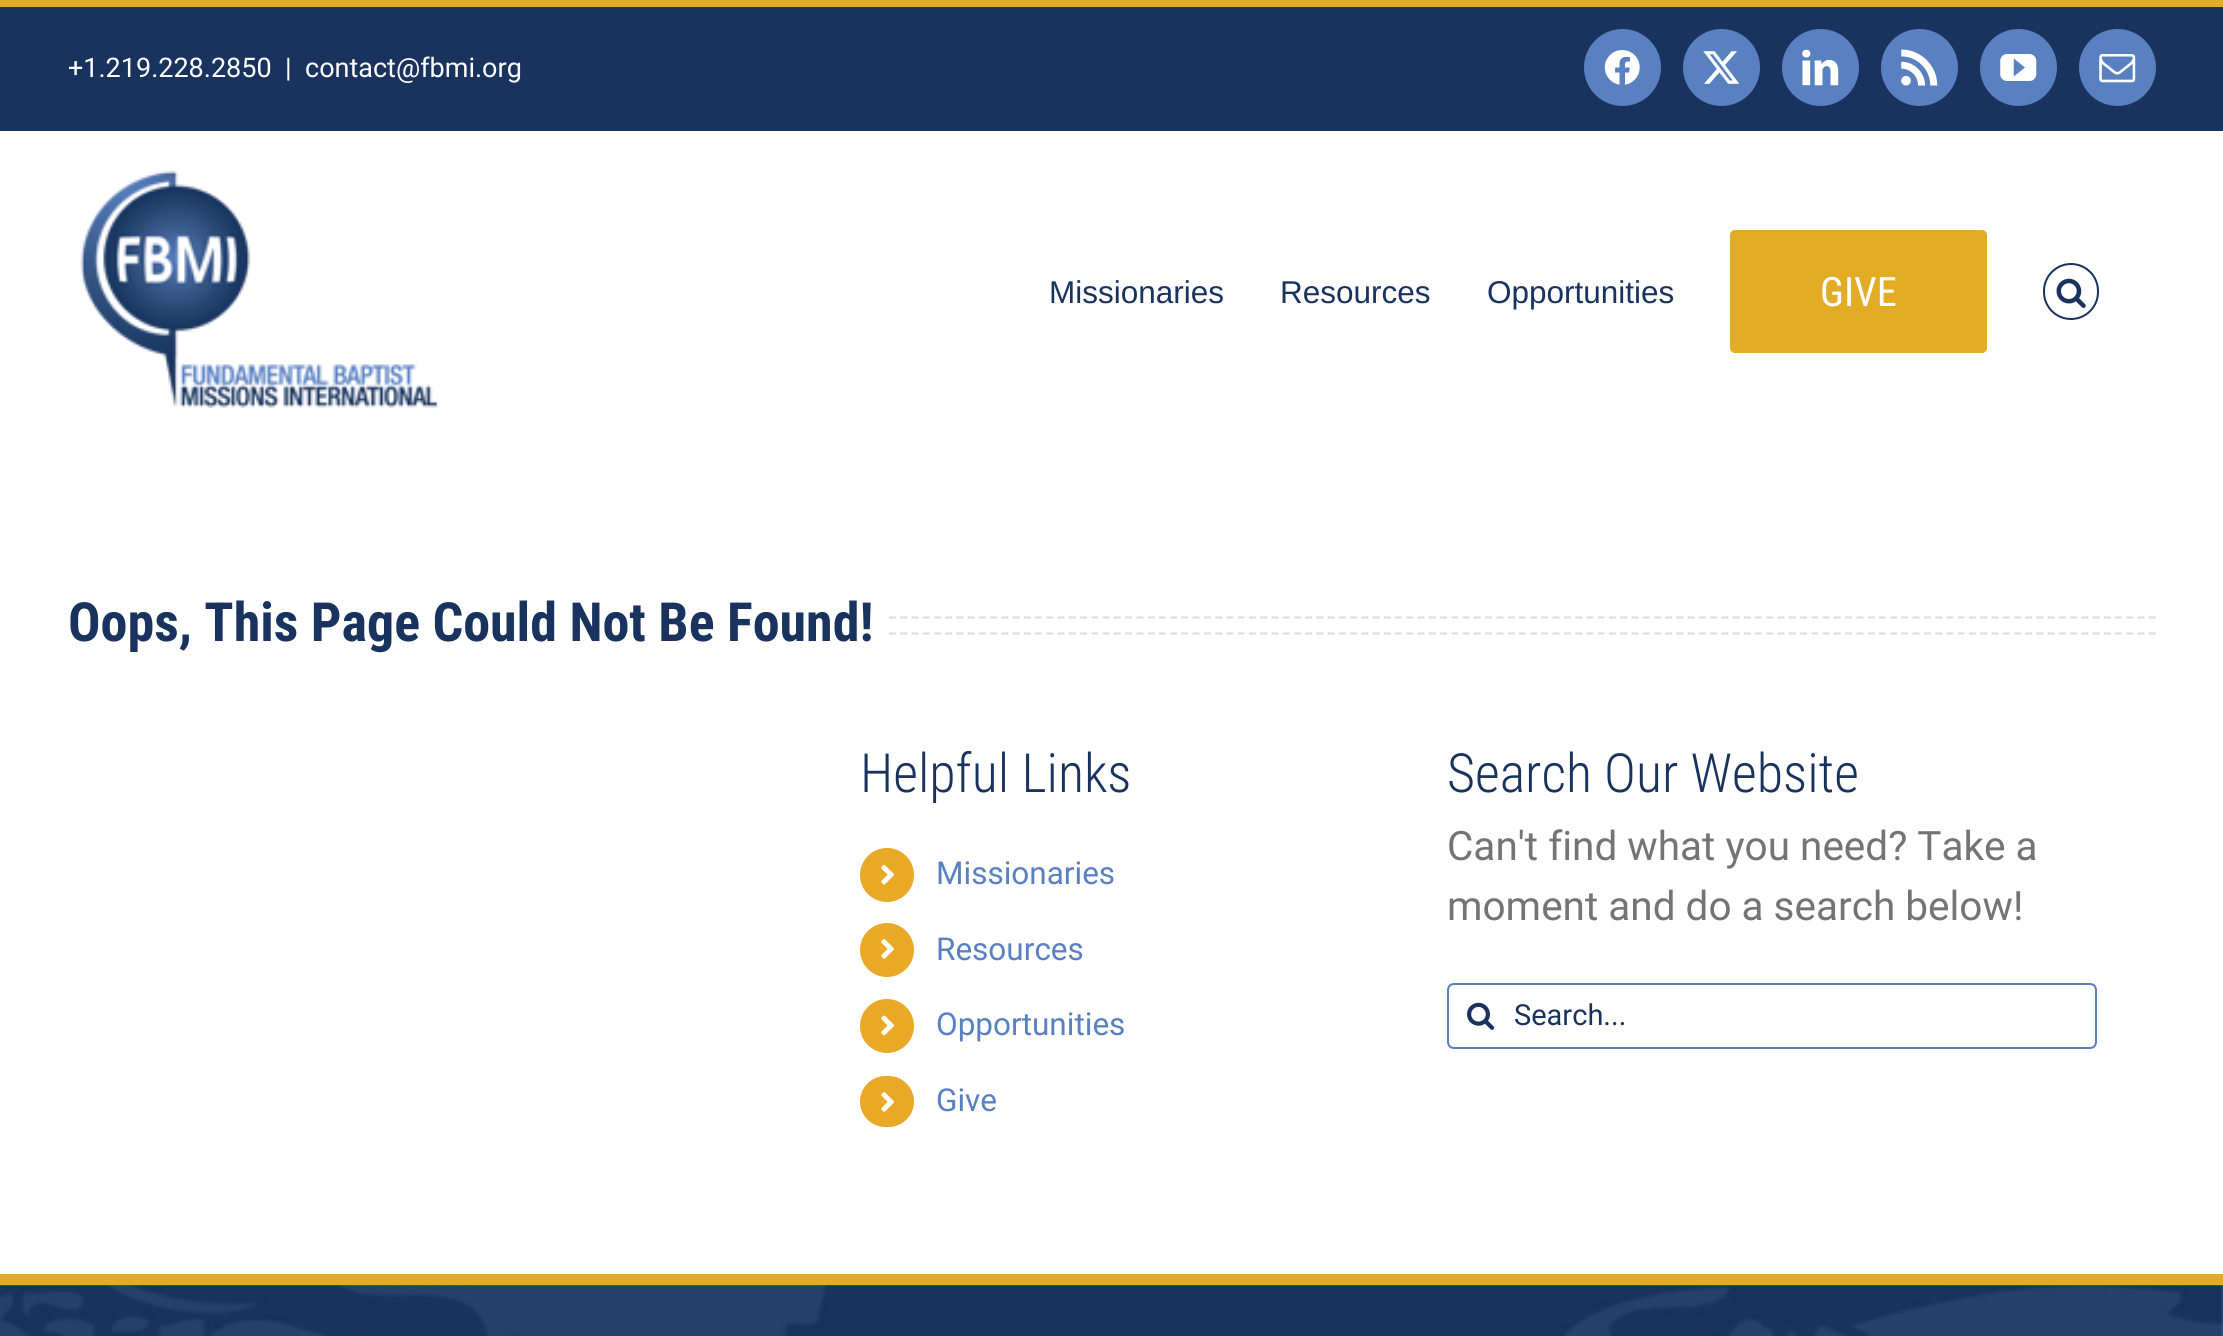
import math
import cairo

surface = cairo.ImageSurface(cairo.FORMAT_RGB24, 2223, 1336)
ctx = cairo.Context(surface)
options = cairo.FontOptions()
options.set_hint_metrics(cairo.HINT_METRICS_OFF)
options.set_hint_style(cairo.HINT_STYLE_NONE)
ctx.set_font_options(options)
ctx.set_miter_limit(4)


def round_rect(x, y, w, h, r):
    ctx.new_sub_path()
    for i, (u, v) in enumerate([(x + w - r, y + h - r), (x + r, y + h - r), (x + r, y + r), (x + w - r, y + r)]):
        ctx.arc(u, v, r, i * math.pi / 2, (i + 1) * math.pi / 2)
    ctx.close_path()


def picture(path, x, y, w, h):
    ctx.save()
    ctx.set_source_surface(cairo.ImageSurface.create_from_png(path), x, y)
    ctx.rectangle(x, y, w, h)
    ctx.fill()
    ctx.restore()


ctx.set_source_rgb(1, 1, 1)
ctx.paint()
ctx.set_source_rgb(0.098, 0.2, 0.369)
ctx.rectangle(0, 7, 2223, 124)
ctx.fill()
ctx.set_source_rgb(0.886, 0.678, 0.145)
ctx.rectangle(0, 0, 2223, 7)
ctx.fill()
ctx.select_font_face("Roboto")
ctx.set_font_size(27)
ctx.set_source_rgb(1, 1, 1)
ctx.move_to(68, 77)
ctx.show_text("+1.219.228.2850")
ctx.move_to(285, 77)
ctx.show_text("|")
ctx.move_to(305, 77)
ctx.show_text("contact@fbmi.org")
ctx.set_source_rgb(0.349, 0.506, 0.757)
ctx.new_path()
ctx.arc(1622.5, 67.5, 37.5, 0, 2 * math.pi)
ctx.fill_preserve()
ctx.stroke()
picture("img1.png", 1604, 50, 36, 35)
ctx.arc(1721.5, 67.5, 37.5, 0, 2 * math.pi)
ctx.fill_preserve()
ctx.stroke()
picture("img2.png", 1703, 51, 37, 33)
ctx.arc(1820.5, 67.5, 37.5, 0, 2 * math.pi)
ctx.fill_preserve()
ctx.stroke()
picture("img3.png", 1802, 49, 37, 37)
ctx.arc(1919.5, 67.5, 37.5, 0, 2 * math.pi)
ctx.fill_preserve()
ctx.stroke()
picture("img4.png", 1901, 49, 37, 37)
ctx.arc(2018.5, 67.5, 37.5, 0, 2 * math.pi)
ctx.fill_preserve()
ctx.stroke()
picture("img5.png", 2000, 54, 37, 27)
ctx.arc(2117.5, 67.5, 37.5, 0, 2 * math.pi)
ctx.fill_preserve()
ctx.stroke()
picture("img6.png", 2099, 54, 37, 29)
picture("img7.png", 80, 170, 359, 238)
ctx.select_font_face("Liberation Sans")
ctx.set_font_size(31.5)
ctx.set_source_rgb(0.098, 0.2, 0.369)
ctx.move_to(1049, 303)
ctx.show_text("Missionaries")
ctx.move_to(1280, 303)
ctx.show_text("Resources")
ctx.move_to(1487, 303)
ctx.show_text("Opportunities")
ctx.set_source_rgb(0.886, 0.678, 0.145)
round_rect(1730, 230, 257, 123, 5)
ctx.fill()
ctx.select_font_face("Roboto Condensed")
ctx.set_font_size(40.5)
ctx.set_source_rgb(1, 1, 1)
ctx.move_to(1820, 306)
ctx.show_text("GIVE")
round_rect(2044, 264, 54, 55, 27)
ctx.set_source_rgb(0.098, 0.2, 0.369)
ctx.stroke()
picture("img8.png", 2056, 278, 30, 30)
ctx.select_font_face("Roboto Condensed", cairo.FONT_SLANT_NORMAL, cairo.FONT_WEIGHT_BOLD)
ctx.set_font_size(54)
ctx.move_to(68, 641)
ctx.show_text("Oops, This Page Could Not Be Found!")
ctx.new_path()
ctx.move_to(889, 617.5)
ctx.line_to(2155.5, 617.5)
ctx.set_source_rgb(0.878, 0.871, 0.871)
ctx.set_line_width(2.2)
ctx.set_dash([6.75, 4.5])
ctx.stroke()
ctx.new_path()
ctx.move_to(889, 633.5)
ctx.line_to(2155.5, 633.5)
ctx.stroke()
ctx.select_font_face("Roboto Condensed Light")
ctx.set_source_rgb(0.098, 0.2, 0.369)
ctx.move_to(860, 792)
ctx.show_text("Helpful Links")
ctx.set_source_rgb(0.914, 0.659, 0.145)
ctx.new_path()
ctx.arc(887, 875, 27, 0, 2 * math.pi)
ctx.fill()
picture("img9.png", 881, 864, 13, 21)
ctx.select_font_face("Roboto")
ctx.set_font_size(31.5)
ctx.set_source_rgb(0.349, 0.506, 0.757)
ctx.move_to(936, 884)
ctx.show_text("Missionaries")
ctx.set_source_rgb(0.914, 0.659, 0.145)
ctx.new_path()
ctx.arc(887, 950, 27, 0, 2 * math.pi)
ctx.fill()
picture("img10.png", 881, 939, 13, 20)
ctx.set_source_rgb(0.349, 0.506, 0.757)
ctx.move_to(936, 960)
ctx.show_text("Resources")
ctx.set_source_rgb(0.914, 0.659, 0.145)
ctx.new_path()
ctx.arc(887, 1026, 27, 0, 2 * math.pi)
ctx.fill()
picture("img11.png", 881, 1015, 13, 21)
ctx.set_source_rgb(0.349, 0.506, 0.757)
ctx.move_to(936, 1035)
ctx.show_text("Opportunities")
ctx.set_source_rgb(0.914, 0.659, 0.145)
round_rect(860, 1076, 54, 51, 25.5)
ctx.fill()
picture("img10.png", 881, 1092, 13, 20)
ctx.set_source_rgb(0.349, 0.506, 0.757)
ctx.move_to(936, 1111)
ctx.show_text("Give")
ctx.select_font_face("Roboto Condensed Light")
ctx.set_font_size(54)
ctx.set_source_rgb(0.098, 0.2, 0.369)
ctx.move_to(1447, 792)
ctx.show_text("Search Our Website")
ctx.select_font_face("Roboto")
ctx.set_font_size(40.5)
ctx.set_source_rgb(0.455, 0.455, 0.455)
ctx.move_to(1447, 860)
ctx.show_text("Can't find what you need? Take a")
ctx.move_to(1447, 920)
ctx.show_text("moment and do a search below!")
round_rect(1448, 984, 648, 64, 6)
ctx.set_source_rgb(0.349, 0.506, 0.757)
ctx.set_line_width(2)
ctx.set_dash([])
ctx.stroke()
picture("img12.png", 1467, 1002, 28, 28)
ctx.set_font_size(29)
ctx.set_source_rgb(0.098, 0.2, 0.369)
ctx.move_to(1514, 1025)
ctx.show_text("Search...")
ctx.set_source_rgb(0.349, 0.506, 0.757)
ctx.rectangle(0, 1285, 2223, 51)
ctx.fill()
picture("img13.png", 0, 1285, 2223, 51)
ctx.set_source_rgb(0.886, 0.678, 0.145)
ctx.rectangle(0, 1274, 2223, 11)
ctx.fill()
surface.write_to_png("page.png")
